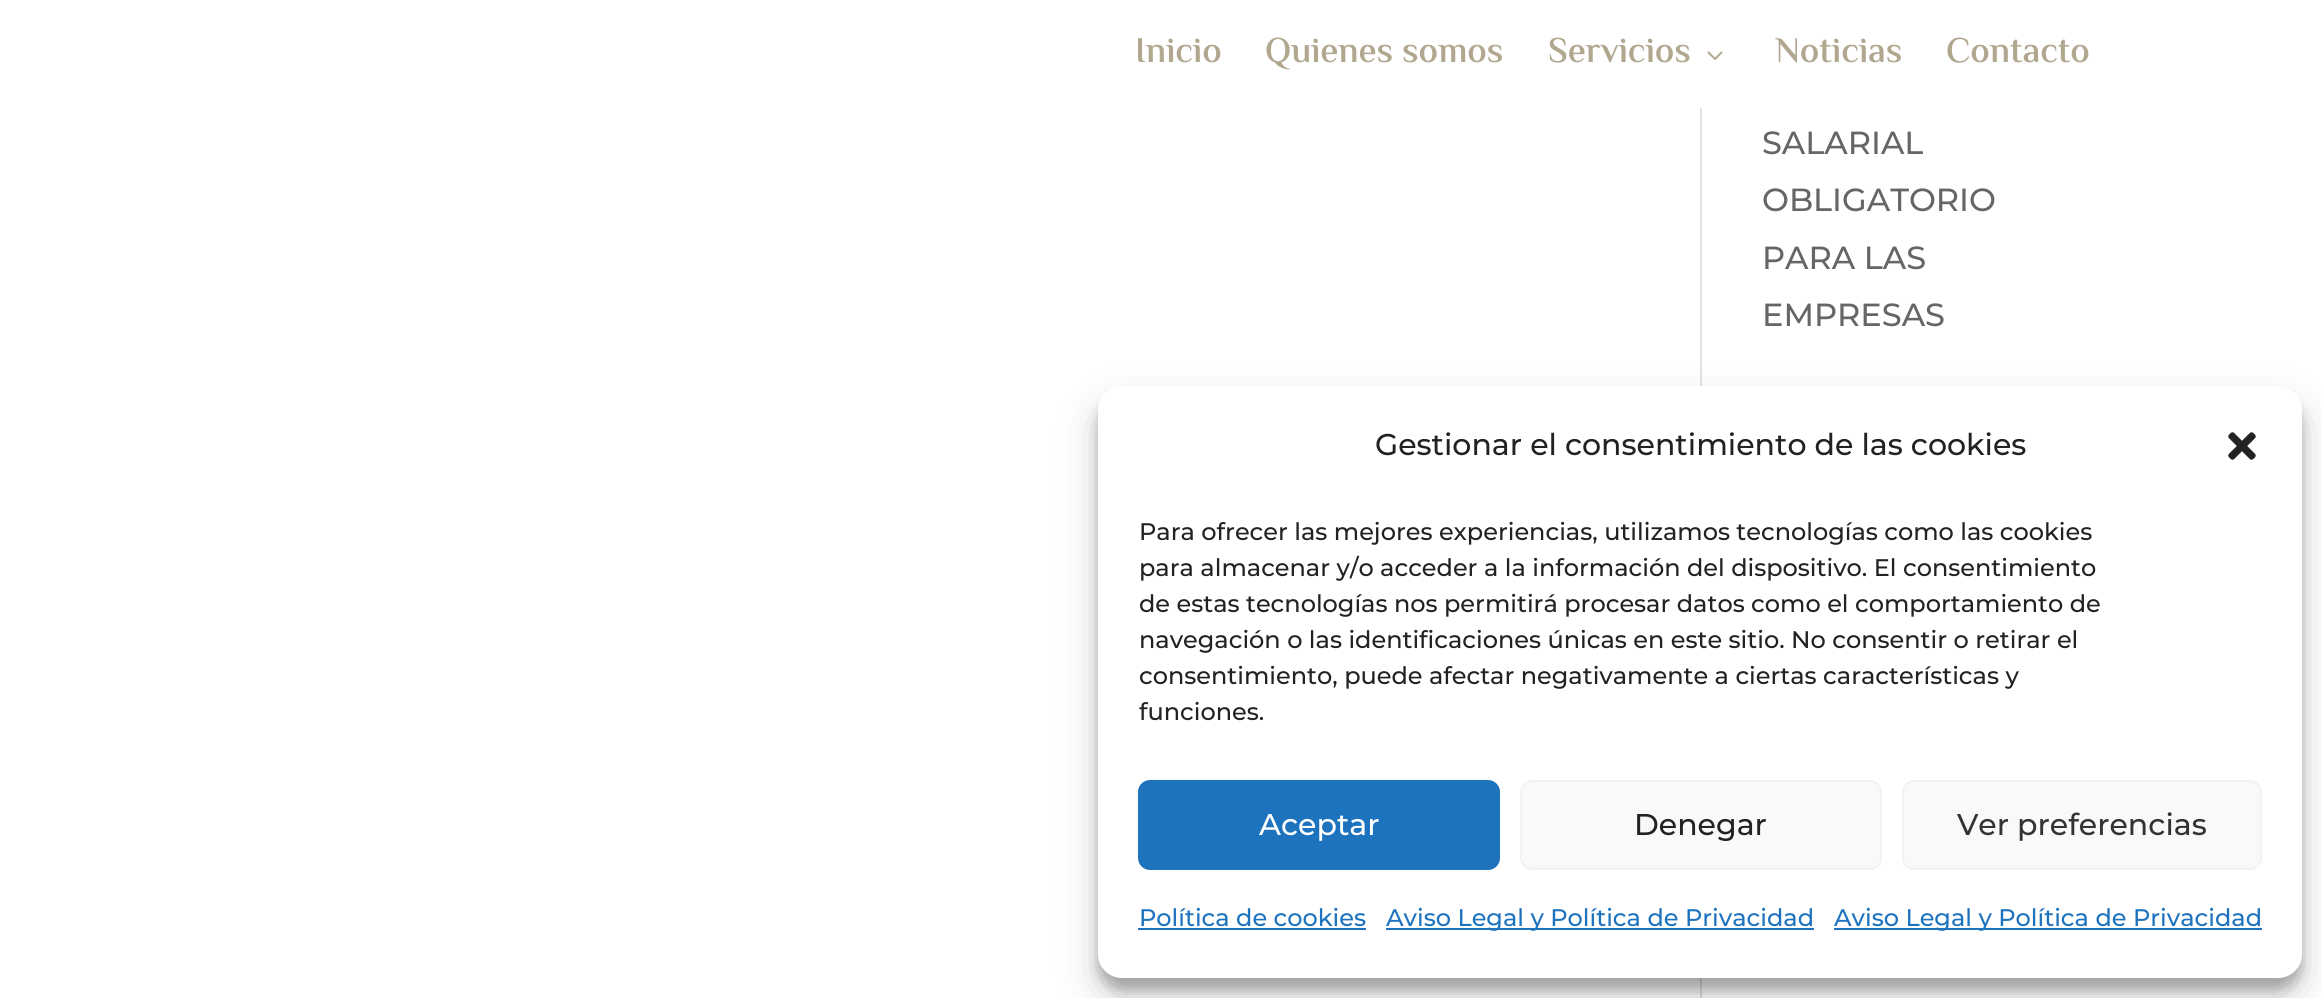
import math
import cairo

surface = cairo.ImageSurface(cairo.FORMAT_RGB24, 2321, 998)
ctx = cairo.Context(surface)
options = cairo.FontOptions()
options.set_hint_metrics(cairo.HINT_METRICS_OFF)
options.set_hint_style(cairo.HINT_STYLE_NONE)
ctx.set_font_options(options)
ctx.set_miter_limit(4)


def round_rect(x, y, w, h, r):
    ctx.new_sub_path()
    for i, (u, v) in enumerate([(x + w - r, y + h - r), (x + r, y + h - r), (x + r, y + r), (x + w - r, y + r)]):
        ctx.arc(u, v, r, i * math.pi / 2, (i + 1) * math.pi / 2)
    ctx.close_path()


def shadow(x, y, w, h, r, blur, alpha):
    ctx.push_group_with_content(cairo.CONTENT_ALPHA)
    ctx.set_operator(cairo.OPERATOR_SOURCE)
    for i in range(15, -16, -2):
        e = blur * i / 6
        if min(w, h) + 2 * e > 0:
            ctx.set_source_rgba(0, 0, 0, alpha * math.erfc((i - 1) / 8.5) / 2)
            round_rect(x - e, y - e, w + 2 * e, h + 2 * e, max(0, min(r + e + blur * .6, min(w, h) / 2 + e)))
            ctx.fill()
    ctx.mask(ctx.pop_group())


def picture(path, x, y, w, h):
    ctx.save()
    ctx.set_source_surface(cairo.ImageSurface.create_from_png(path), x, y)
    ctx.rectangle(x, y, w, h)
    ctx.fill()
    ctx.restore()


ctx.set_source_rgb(1, 1, 1)
ctx.paint()
ctx.select_font_face("El Messiri SemiBold")
ctx.set_font_size(36)
ctx.set_source_rgb(0.694, 0.655, 0.561)
ctx.move_to(1135, 62)
ctx.show_text("Inicio")
ctx.move_to(1265, 62)
ctx.show_text("Quienes somos")
ctx.move_to(1548, 62)
ctx.show_text("Servicios")
picture("img1.png", 1707, 51, 16, 9)
ctx.move_to(1775, 62)
ctx.show_text("Noticias")
ctx.move_to(1946, 62)
ctx.show_text("Contacto")
ctx.set_source_rgb(0.886, 0.886, 0.886)
ctx.rectangle(1700, 108, 2, 890)
ctx.fill()
ctx.select_font_face("Montserrat Medium")
ctx.set_font_size(32)
ctx.set_source_rgb(0.4, 0.4, 0.4)
ctx.move_to(1762, 154)
ctx.show_text("SALARIAL")
ctx.move_to(1762, 211)
ctx.show_text("OBLIGATORIO")
ctx.move_to(1762, 269)
ctx.show_text("PARA LAS")
ctx.move_to(1762, 326)
ctx.show_text("EMPRESAS")
ctx.set_source_rgb(0, 0, 0)
shadow(1098, 398, 1204, 592, 24, 6, 0.23)
shadow(1098, 406, 1204, 592, 24, 20, 0.19)
ctx.set_source_rgb(1, 1, 1)
round_rect(1098, 386, 1204, 592, 24)
ctx.fill()
ctx.set_font_size(30)
ctx.set_source_rgb(0.133, 0.133, 0.133)
ctx.move_to(1375, 455)
ctx.show_text("Gestionar el consentimiento de las cookies")
picture("img2.png", 2228, 432, 28, 28)
ctx.set_font_size(24)
ctx.move_to(1139, 540)
ctx.show_text("Para ofrecer las mejores experiencias, utilizamos tecnologías como las cookies")
ctx.move_to(1139, 576)
ctx.show_text("para almacenar y/o acceder a la información del dispositivo. El consentimiento")
ctx.move_to(1139, 612)
ctx.show_text("de estas tecnologías nos permitirá procesar datos como el comportamiento de")
ctx.move_to(1139, 648)
ctx.show_text("navegación o las identificaciones únicas en este sitio. No consentir o retirar el")
ctx.move_to(1139, 684)
ctx.show_text("consentimiento, puede afectar negativamente a ciertas características y")
ctx.move_to(1139, 720)
ctx.show_text("funciones.")
ctx.set_source_rgb(0.118, 0.451, 0.745)
round_rect(1139, 781, 360, 88, 11)
ctx.fill_preserve()
ctx.stroke()
ctx.set_font_size(30)
ctx.set_source_rgb(1, 1, 1)
ctx.move_to(1259, 835)
ctx.show_text("Aceptar")
ctx.set_source_rgb(0.976, 0.976, 0.976)
round_rect(1521, 781, 360, 88, 11)
ctx.fill_preserve()
ctx.set_source_rgb(0.949, 0.949, 0.949)
ctx.stroke()
ctx.set_source_rgb(0.133, 0.133, 0.133)
ctx.move_to(1634, 835)
ctx.show_text("Denegar")
ctx.set_source_rgb(0.976, 0.976, 0.976)
round_rect(1903, 781, 358, 88, 11)
ctx.fill_preserve()
ctx.set_source_rgb(0.949, 0.949, 0.949)
ctx.stroke()
ctx.set_source_rgb(0.2, 0.2, 0.2)
ctx.move_to(1957, 835)
ctx.show_text("Ver preferencias")
ctx.set_font_size(24)
ctx.set_source_rgb(0.118, 0.451, 0.745)
ctx.move_to(1139, 926)
ctx.show_text("Política de cookies")
ctx.rectangle(1138, 928, 228, 2)
ctx.fill()
ctx.rectangle(1386, 928, 428, 2)
ctx.fill()
ctx.move_to(1386, 926)
ctx.show_text("Aviso Legal y Política de Privacidad")
ctx.rectangle(1834, 928, 428, 2)
ctx.fill()
ctx.move_to(1834, 926)
ctx.show_text("Aviso Legal y Política de Privacidad")
surface.write_to_png("page.png")
